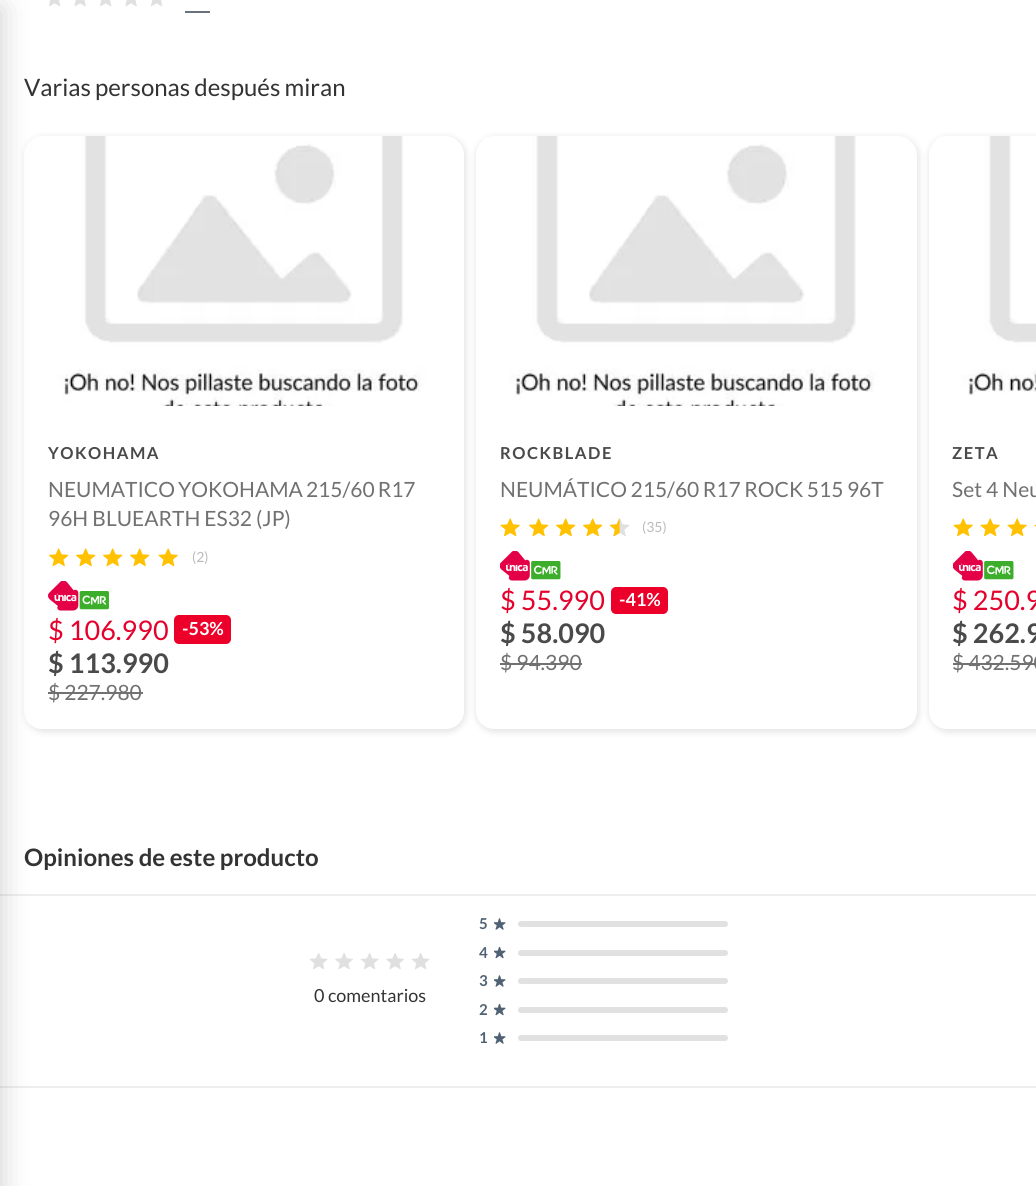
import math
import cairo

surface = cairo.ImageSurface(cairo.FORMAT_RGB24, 1036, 1186)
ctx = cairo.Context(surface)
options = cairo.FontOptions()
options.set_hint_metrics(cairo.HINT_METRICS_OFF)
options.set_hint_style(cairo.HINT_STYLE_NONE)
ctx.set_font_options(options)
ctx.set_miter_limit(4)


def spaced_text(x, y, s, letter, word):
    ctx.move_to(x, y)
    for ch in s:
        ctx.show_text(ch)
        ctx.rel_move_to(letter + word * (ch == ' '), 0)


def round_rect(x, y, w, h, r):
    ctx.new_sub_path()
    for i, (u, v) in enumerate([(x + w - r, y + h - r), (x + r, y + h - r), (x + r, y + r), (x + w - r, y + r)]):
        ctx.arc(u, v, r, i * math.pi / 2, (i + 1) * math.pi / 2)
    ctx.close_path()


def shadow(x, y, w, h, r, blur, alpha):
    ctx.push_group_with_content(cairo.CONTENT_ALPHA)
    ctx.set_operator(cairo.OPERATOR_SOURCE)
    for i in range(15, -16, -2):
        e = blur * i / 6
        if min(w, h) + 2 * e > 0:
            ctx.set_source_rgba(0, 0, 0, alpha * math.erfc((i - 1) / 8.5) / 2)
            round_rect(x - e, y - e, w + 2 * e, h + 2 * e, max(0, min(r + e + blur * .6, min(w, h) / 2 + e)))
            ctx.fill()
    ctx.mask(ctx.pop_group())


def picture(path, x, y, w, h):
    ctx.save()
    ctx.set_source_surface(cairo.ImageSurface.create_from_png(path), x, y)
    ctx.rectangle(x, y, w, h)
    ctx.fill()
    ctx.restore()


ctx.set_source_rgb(1, 1, 1)
ctx.paint()
ctx.set_source_rgb(0, 0, 0)
shadow(26, 138, 439, 593, 18, 4, 0.14)
ctx.set_source_rgb(1, 1, 1)
round_rect(24, 137, 440, 592, 18)
ctx.fill()
picture("img3.png", 35, 136, 421, 270)
ctx.set_source_rgb(0.933, 0.933, 0.933)
ctx.rectangle(0, 894, 1036, 2)
ctx.fill()
ctx.rectangle(0, 1086, 1036, 2)
ctx.fill()
ctx.set_source_rgb(0, 0, 0)
shadow(-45, 8, 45, 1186, 0, 15, 0.2)
picture("img1.png", 49, 0, 12, 7)
picture("img2.png", 74, 0, 12, 7)
picture("img1.png", 100, 0, 12, 7)
picture("img2.png", 125, 0, 12, 7)
picture("img1.png", 151, 0, 12, 7)
ctx.set_source_rgb(0.408, 0.443, 0.49)
ctx.rectangle(185, 11, 25, 2)
ctx.fill()
ctx.select_font_face("Lato")
ctx.set_font_size(24)
ctx.set_source_rgb(0.2, 0.2, 0.2)
spaced_text(24, 96, "Varias personas después miran", 0, -0.5)
ctx.select_font_face("Lato", cairo.FONT_SLANT_NORMAL, cairo.FONT_WEIGHT_BOLD)
ctx.set_font_size(16.5)
ctx.set_source_rgb(0.29, 0.29, 0.29)
spaced_text(48, 459, "YOKOHAMA", 1.5, 0)
ctx.select_font_face("Lato")
ctx.set_font_size(21)
ctx.set_source_rgb(0.443, 0.443, 0.443)
spaced_text(48, 497, "NEUMATICO YOKOHAMA 215/60 R17", 0, -1)
ctx.move_to(48, 526)
ctx.show_text("96H BLUEARTH ES32 (JP)")
picture("img4.png", 49, 548, 20, 19)
picture("img4.png", 76, 548, 20, 19)
picture("img4.png", 103, 548, 20, 19)
picture("img4.png", 130, 548, 20, 19)
picture("img5.png", 158, 548, 20, 19)
ctx.set_font_size(14)
ctx.set_source_rgb(0.733, 0.733, 0.733)
ctx.move_to(192, 562)
ctx.show_text("(2)")
picture("img6.png", 48, 581, 61, 30)
ctx.set_font_size(27)
ctx.set_source_rgb(0.894, 0.008, 0.176)
ctx.move_to(48, 640)
ctx.show_text("$ 106.990")
ctx.set_source_rgb(0.922, 0, 0.161)
round_rect(174, 615, 57, 29, 5)
ctx.fill()
ctx.select_font_face("Lato", cairo.FONT_SLANT_NORMAL, cairo.FONT_WEIGHT_BOLD)
ctx.set_font_size(18)
ctx.set_source_rgb(1, 1, 1)
ctx.move_to(182, 635)
ctx.show_text("-53%")
ctx.set_font_size(27)
ctx.set_source_rgb(0.29, 0.29, 0.29)
ctx.move_to(48, 673)
ctx.show_text("$ 113.990")
ctx.select_font_face("Lato")
ctx.set_font_size(21)
ctx.set_source_rgb(0.443, 0.443, 0.443)
ctx.move_to(48, 700)
ctx.show_text("$ 227.980")
ctx.rectangle(48, 692, 95, 2)
ctx.fill()
ctx.set_source_rgb(0, 0, 0)
shadow(477, 138, 441, 593, 18, 4, 0.14)
ctx.set_source_rgb(1, 1, 1)
round_rect(476, 137, 441, 592, 18)
ctx.fill()
picture("img7.png", 483, 136, 426, 270)
ctx.select_font_face("Lato", cairo.FONT_SLANT_NORMAL, cairo.FONT_WEIGHT_BOLD)
ctx.set_font_size(16.5)
ctx.set_source_rgb(0.29, 0.29, 0.29)
spaced_text(500, 459, "ROCKBLADE", 1.5, 0)
ctx.select_font_face("Lato")
ctx.set_font_size(21)
ctx.set_source_rgb(0.443, 0.443, 0.443)
spaced_text(500, 497, "NEUMÁTICO 215/60 R17 ROCK 515 96T", 0, -0.5)
picture("img5.png", 500, 518, 20, 19)
picture("img4.png", 529, 518, 20, 19)
picture("img4.png", 556, 518, 20, 19)
picture("img4.png", 583, 518, 20, 19)
picture("img9.png", 610, 518, 20, 18)
picture("img8.png", 609, 518, 11, 19)
ctx.set_font_size(14)
ctx.set_source_rgb(0.733, 0.733, 0.733)
ctx.move_to(642, 532)
ctx.show_text("(35)")
picture("img10.png", 500, 551, 61, 30)
ctx.set_font_size(27)
ctx.set_source_rgb(0.894, 0.008, 0.176)
ctx.move_to(500, 610)
ctx.show_text("$ 55.990")
ctx.set_source_rgb(0.922, 0, 0.161)
round_rect(611, 587, 57, 27, 5)
ctx.fill()
ctx.select_font_face("Lato", cairo.FONT_SLANT_NORMAL, cairo.FONT_WEIGHT_BOLD)
ctx.set_font_size(18)
ctx.set_source_rgb(1, 1, 1)
ctx.move_to(619, 606)
ctx.show_text("-41%")
ctx.set_font_size(27)
ctx.set_source_rgb(0.29, 0.29, 0.29)
ctx.move_to(500, 643)
ctx.show_text("$ 58.090")
ctx.select_font_face("Lato")
ctx.set_font_size(21)
ctx.set_source_rgb(0.443, 0.443, 0.443)
ctx.move_to(500, 670)
ctx.show_text("$ 94.390")
ctx.rectangle(500, 663, 82, 2)
ctx.fill()
ctx.set_source_rgb(0, 0, 0)
shadow(930, 138, 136, 593, 18, 4, 0.14)
ctx.set_source_rgb(1, 1, 1)
ctx.new_path()
ctx.move_to(947, 137)
ctx.line_to(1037, 137)
ctx.line_to(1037, 729)
ctx.line_to(947, 729)
ctx.curve_to(937, 729, 929, 721, 929, 711)
ctx.line_to(929, 155)
ctx.curve_to(929, 145, 937, 137, 947, 137)
ctx.close_path()
ctx.fill()
picture("img11.png", 936, 136, 100, 259)
ctx.select_font_face("Lato", cairo.FONT_SLANT_NORMAL, cairo.FONT_WEIGHT_BOLD)
ctx.set_font_size(16.5)
ctx.set_source_rgb(0.29, 0.29, 0.29)
spaced_text(952, 459, "ZETA", 1.5, 0)
ctx.select_font_face("Lato")
ctx.set_font_size(21)
ctx.set_source_rgb(0.443, 0.443, 0.443)
ctx.move_to(952, 497)
ctx.show_text("Set 4 Neu")
picture("img5.png", 953, 518, 20, 19)
picture("img5.png", 980, 518, 20, 19)
picture("img5.png", 1007, 518, 20, 19)
picture("img12.png", 1034, 524, 2, 3)
picture("img10.png", 953, 551, 61, 30)
ctx.set_font_size(27)
ctx.set_source_rgb(0.894, 0.008, 0.176)
ctx.move_to(952, 610)
ctx.show_text("$ 250.9")
ctx.select_font_face("Lato", cairo.FONT_SLANT_NORMAL, cairo.FONT_WEIGHT_BOLD)
ctx.set_source_rgb(0.29, 0.29, 0.29)
ctx.move_to(952, 643)
ctx.show_text("$ 262.9")
ctx.select_font_face("Lato")
ctx.set_font_size(21)
ctx.set_source_rgb(0.443, 0.443, 0.443)
ctx.move_to(952, 670)
ctx.show_text("$ 432.590")
ctx.rectangle(953, 663, 83, 2)
ctx.fill()
ctx.select_font_face("Lato", cairo.FONT_SLANT_NORMAL, cairo.FONT_WEIGHT_BOLD)
ctx.set_font_size(24)
ctx.set_source_rgb(0.2, 0.2, 0.2)
ctx.move_to(24, 866)
ctx.show_text("Opiniones de este producto")
picture("img13.png", 309, 953, 19, 17)
picture("img14.png", 335, 953, 18, 17)
picture("img13.png", 360, 953, 19, 17)
picture("img14.png", 386, 953, 18, 17)
picture("img13.png", 411, 953, 19, 17)
ctx.select_font_face("Lato")
ctx.set_font_size(18)
ctx.move_to(314, 1002)
ctx.show_text("0 comentarios")
ctx.select_font_face("Lato", cairo.FONT_SLANT_NORMAL, cairo.FONT_WEIGHT_BOLD)
ctx.set_font_size(15)
ctx.set_source_rgb(0.31, 0.38, 0.447)
ctx.move_to(479, 929)
ctx.show_text("5")
picture("img15.png", 494, 918, 12, 12)
ctx.set_source_rgb(0.882, 0.882, 0.882)
round_rect(518, 921, 210, 6, 3)
ctx.fill()
ctx.set_source_rgb(0.31, 0.38, 0.447)
ctx.move_to(479, 958)
ctx.show_text("4")
picture("img16.png", 494, 947, 12, 12)
ctx.set_source_rgb(0.882, 0.882, 0.882)
round_rect(518, 950, 210, 6, 3)
ctx.fill()
ctx.set_source_rgb(0.31, 0.38, 0.447)
ctx.move_to(479, 986)
ctx.show_text("3")
picture("img15.png", 494, 975, 12, 12)
ctx.set_source_rgb(0.882, 0.882, 0.882)
round_rect(518, 978, 210, 6, 3)
ctx.fill()
ctx.set_source_rgb(0.31, 0.38, 0.447)
ctx.move_to(479, 1015)
ctx.show_text("2")
picture("img16.png", 494, 1004, 12, 12)
ctx.set_source_rgb(0.882, 0.882, 0.882)
round_rect(518, 1007, 210, 6, 3)
ctx.fill()
ctx.set_source_rgb(0.31, 0.38, 0.447)
ctx.move_to(479, 1043)
ctx.show_text("1")
picture("img15.png", 494, 1032, 12, 12)
ctx.set_source_rgb(0.882, 0.882, 0.882)
round_rect(518, 1035, 210, 6, 3)
ctx.fill()
surface.write_to_png("page.png")
